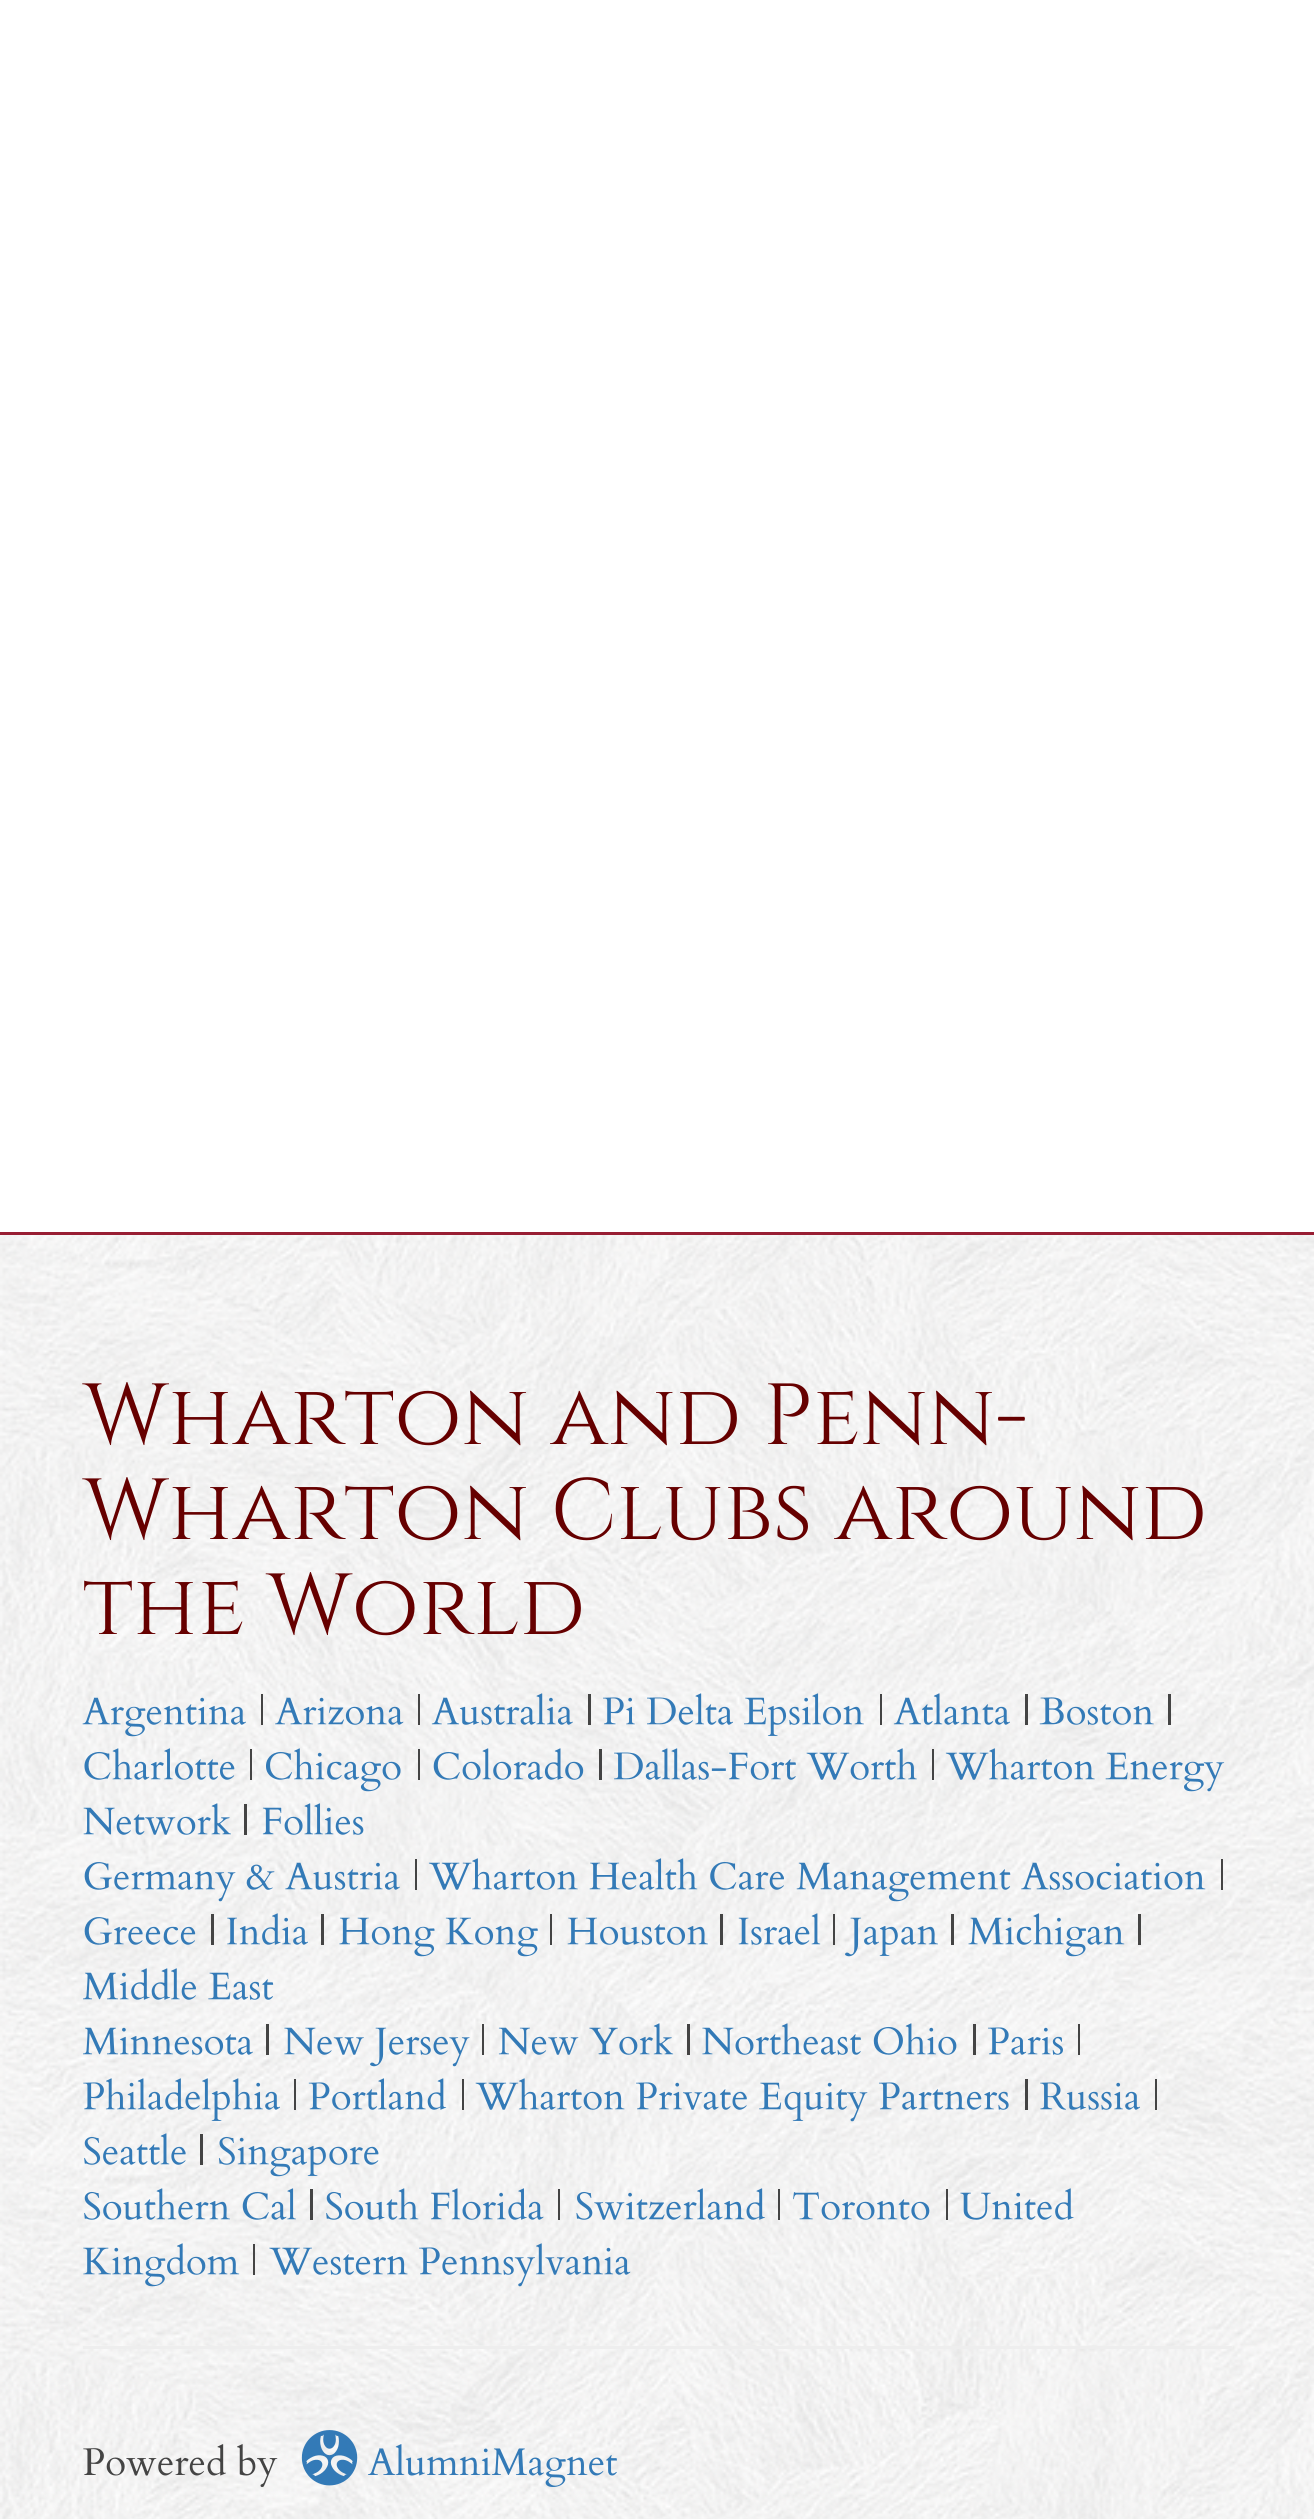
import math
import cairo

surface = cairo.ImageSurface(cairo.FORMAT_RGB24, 1314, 2519)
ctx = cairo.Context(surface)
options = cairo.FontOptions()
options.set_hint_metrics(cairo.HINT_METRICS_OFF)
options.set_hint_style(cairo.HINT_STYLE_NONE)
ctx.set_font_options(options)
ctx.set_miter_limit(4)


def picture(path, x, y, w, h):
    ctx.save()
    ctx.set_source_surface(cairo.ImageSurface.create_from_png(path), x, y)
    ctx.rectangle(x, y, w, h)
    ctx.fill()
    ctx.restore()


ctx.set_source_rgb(1, 1, 1)
ctx.paint()
picture("img1.png", 0, 1235, 1314, 1284)
ctx.set_source_rgb(0.596, 0.118, 0.2)
ctx.rectangle(0, 1232, 1314, 3)
ctx.fill()
ctx.select_font_face("Cinzel")
ctx.set_font_size(86.6)
ctx.set_source_rgb(0.4, 0, 0)
ctx.move_to(83, 1444)
ctx.show_text("Wharton and Penn-")
ctx.move_to(83, 1539)
ctx.show_text("Wharton Clubs around")
ctx.move_to(83, 1634)
ctx.show_text("the World")
picture("img2.png", 82, 1697, 164, 40)
ctx.set_source_rgb(0.267, 0.267, 0.267)
ctx.rectangle(261, 1694, 2, 31)
ctx.fill()
picture("img3.png", 275, 1697, 129, 28)
ctx.rectangle(418, 1694, 2, 31)
ctx.fill()
picture("img4.png", 431, 1693, 142, 32)
ctx.rectangle(588, 1694, 3, 31)
ctx.fill()
picture("img5.png", 603, 1693, 261, 43)
ctx.rectangle(880, 1694, 2, 31)
ctx.fill()
picture("img6.png", 893, 1693, 117, 32)
ctx.rectangle(1025, 1694, 3, 31)
ctx.fill()
picture("img7.png", 1039, 1697, 115, 28)
ctx.rectangle(1168, 1694, 3, 31)
ctx.fill()
picture("img8.png", 84, 1748, 151, 32)
ctx.rectangle(250, 1749, 2, 31)
ctx.fill()
picture("img9.png", 266, 1748, 135, 44)
ctx.rectangle(418, 1749, 2, 31)
ctx.fill()
picture("img10.png", 433, 1748, 151, 32)
ctx.rectangle(599, 1749, 3, 31)
ctx.fill()
picture("img11.png", 614, 1748, 303, 32)
ctx.rectangle(932, 1749, 2, 31)
ctx.fill()
picture("img12.png", 945, 1748, 280, 44)
picture("img13.png", 83, 1803, 148, 32)
ctx.rectangle(244, 1804, 3, 31)
ctx.fill()
picture("img14.png", 262, 1803, 102, 32)
picture("img15.png", 84, 1862, 316, 40)
ctx.rectangle(415, 1859, 2, 31)
ctx.fill()
picture("img16.png", 428, 1858, 778, 44)
ctx.rectangle(1221, 1859, 2, 31)
ctx.fill()
picture("img17.png", 84, 1917, 112, 28)
ctx.rectangle(211, 1914, 3, 31)
ctx.fill()
picture("img18.png", 227, 1913, 81, 32)
ctx.rectangle(321, 1914, 3, 31)
ctx.fill()
picture("img19.png", 339, 1917, 199, 40)
ctx.rectangle(550, 1914, 2, 31)
ctx.fill()
picture("img20.png", 567, 1917, 141, 28)
ctx.rectangle(720, 1914, 3, 31)
ctx.fill()
picture("img21.png", 738, 1913, 83, 32)
ctx.rectangle(833, 1914, 2, 31)
ctx.fill()
picture("img22.png", 845, 1917, 93, 40)
ctx.rectangle(951, 1914, 3, 31)
ctx.fill()
picture("img23.png", 968, 1913, 157, 44)
ctx.rectangle(1138, 1914, 3, 31)
ctx.fill()
picture("img24.png", 83, 1968, 191, 32)
picture("img25.png", 83, 2027, 170, 28)
ctx.rectangle(266, 2024, 3, 31)
ctx.fill()
picture("img26.png", 284, 2027, 186, 40)
ctx.rectangle(482, 2024, 2, 31)
ctx.fill()
picture("img27.png", 498, 2023, 176, 32)
ctx.rectangle(687, 2024, 3, 31)
ctx.fill()
picture("img28.png", 702, 2023, 255, 32)
ctx.rectangle(973, 2024, 3, 31)
ctx.fill()
picture("img29.png", 988, 2027, 75, 28)
ctx.rectangle(1078, 2024, 2, 31)
ctx.fill()
picture("img30.png", 83, 2078, 197, 43)
ctx.rectangle(294, 2079, 2, 31)
ctx.fill()
picture("img31.png", 308, 2078, 139, 32)
ctx.rectangle(462, 2079, 2, 31)
ctx.fill()
picture("img32.png", 475, 2078, 534, 44)
ctx.rectangle(1025, 2079, 3, 31)
ctx.fill()
picture("img33.png", 1040, 2082, 100, 28)
ctx.rectangle(1155, 2079, 2, 31)
ctx.fill()
picture("img34.png", 84, 2133, 102, 32)
ctx.rectangle(200, 2134, 3, 31)
ctx.fill()
picture("img35.png", 218, 2136, 161, 41)
picture("img36.png", 84, 2188, 212, 32)
ctx.rectangle(310, 2189, 3, 31)
ctx.fill()
picture("img37.png", 326, 2188, 218, 32)
ctx.rectangle(558, 2189, 2, 31)
ctx.fill()
picture("img38.png", 576, 2188, 189, 32)
ctx.rectangle(778, 2189, 2, 31)
ctx.fill()
picture("img39.png", 793, 2192, 137, 28)
ctx.rectangle(946, 2189, 2, 31)
ctx.fill()
picture("img40.png", 960, 2188, 114, 32)
picture("img41.png", 83, 2243, 157, 44)
ctx.rectangle(253, 2244, 2, 31)
ctx.fill()
picture("img42.png", 269, 2243, 362, 44)
ctx.set_source_rgb(0.933, 0.933, 0.933)
ctx.rectangle(83, 2346, 1149, 3)
ctx.fill()
picture("img43.png", 83, 2444, 195, 43)
picture("img44.png", 301, 2430, 57, 56)
picture("img45.png", 367, 2444, 250, 43)
surface.write_to_png("page.png")
